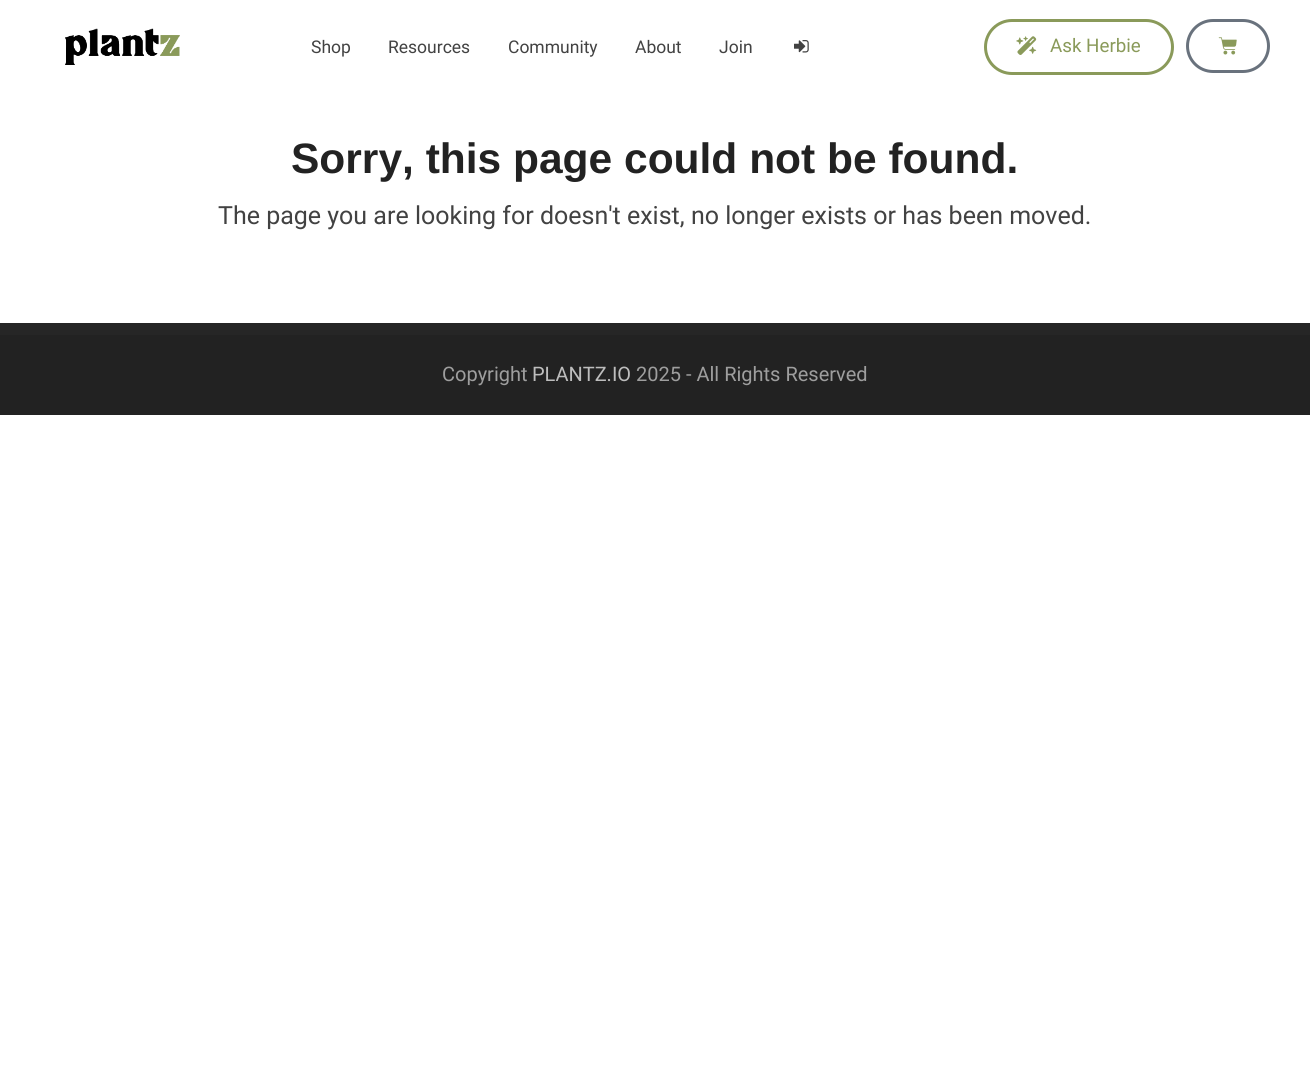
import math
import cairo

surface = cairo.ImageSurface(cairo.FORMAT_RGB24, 1310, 1091)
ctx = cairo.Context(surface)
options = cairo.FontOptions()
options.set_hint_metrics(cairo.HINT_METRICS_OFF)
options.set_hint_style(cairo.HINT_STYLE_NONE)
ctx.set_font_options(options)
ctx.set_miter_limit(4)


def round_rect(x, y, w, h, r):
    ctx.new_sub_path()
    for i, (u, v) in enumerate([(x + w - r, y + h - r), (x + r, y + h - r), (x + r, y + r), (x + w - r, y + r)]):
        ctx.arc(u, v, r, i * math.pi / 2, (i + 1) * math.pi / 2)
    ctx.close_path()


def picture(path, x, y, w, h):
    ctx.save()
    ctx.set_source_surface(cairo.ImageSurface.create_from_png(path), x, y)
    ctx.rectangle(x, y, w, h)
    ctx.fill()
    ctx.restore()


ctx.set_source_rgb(1, 1, 1)
ctx.paint()
picture("img1.png", 65, 28, 115, 37)
ctx.select_font_face("Roboto")
ctx.set_font_size(17.5)
ctx.set_source_rgb(0.259, 0.259, 0.259)
ctx.move_to(311, 53)
ctx.show_text("Shop")
ctx.move_to(388, 53)
ctx.show_text("Resources")
ctx.move_to(508, 53)
ctx.show_text("Community")
ctx.move_to(635, 53)
ctx.show_text("About")
ctx.move_to(719, 53)
ctx.show_text("Join")
picture("img2.png", 794, 40, 15, 13)
round_rect(985.5, 20.5, 187, 53, 26.5)
ctx.set_source_rgb(0.541, 0.604, 0.353)
ctx.set_line_width(3)
ctx.stroke()
picture("img3.png", 1016, 36, 21, 19)
ctx.set_font_size(18.75)
ctx.move_to(1050, 52)
ctx.show_text("Ask Herbie")
round_rect(1187.5, 20.5, 81, 51, 25.5)
ctx.set_source_rgb(0.412, 0.447, 0.49)
ctx.stroke()
picture("img4.png", 1218, 37, 19, 18)
ctx.select_font_face("Liberation Sans", cairo.FONT_SLANT_NORMAL, cairo.FONT_WEIGHT_BOLD)
ctx.set_font_size(42.5)
ctx.set_source_rgb(0.133, 0.133, 0.133)
ctx.move_to(291, 173)
ctx.show_text("Sorry, this page could not be found.")
ctx.select_font_face("Roboto")
ctx.set_font_size(25)
ctx.set_source_rgb(0.259, 0.259, 0.259)
ctx.move_to(218, 224)
ctx.show_text("The page you are looking for doesn't exist, no longer exists or has been moved.")
ctx.set_source_rgb(0.149, 0.149, 0.149)
ctx.rectangle(0, 323, 1310, 12)
ctx.fill()
ctx.set_source_rgb(0.133, 0.133, 0.133)
ctx.rectangle(0, 335, 1310, 80)
ctx.fill()
ctx.set_font_size(20)
ctx.set_source_rgb(0.62, 0.62, 0.62)
ctx.move_to(442, 381)
ctx.show_text("Copyright")
ctx.set_source_rgb(0.741, 0.741, 0.741)
ctx.move_to(532, 381)
ctx.show_text("PLANTZ.IO")
ctx.set_source_rgb(0.62, 0.62, 0.62)
ctx.move_to(636, 381)
ctx.show_text("2025 - All Rights Reserved")
surface.write_to_png("page.png")
